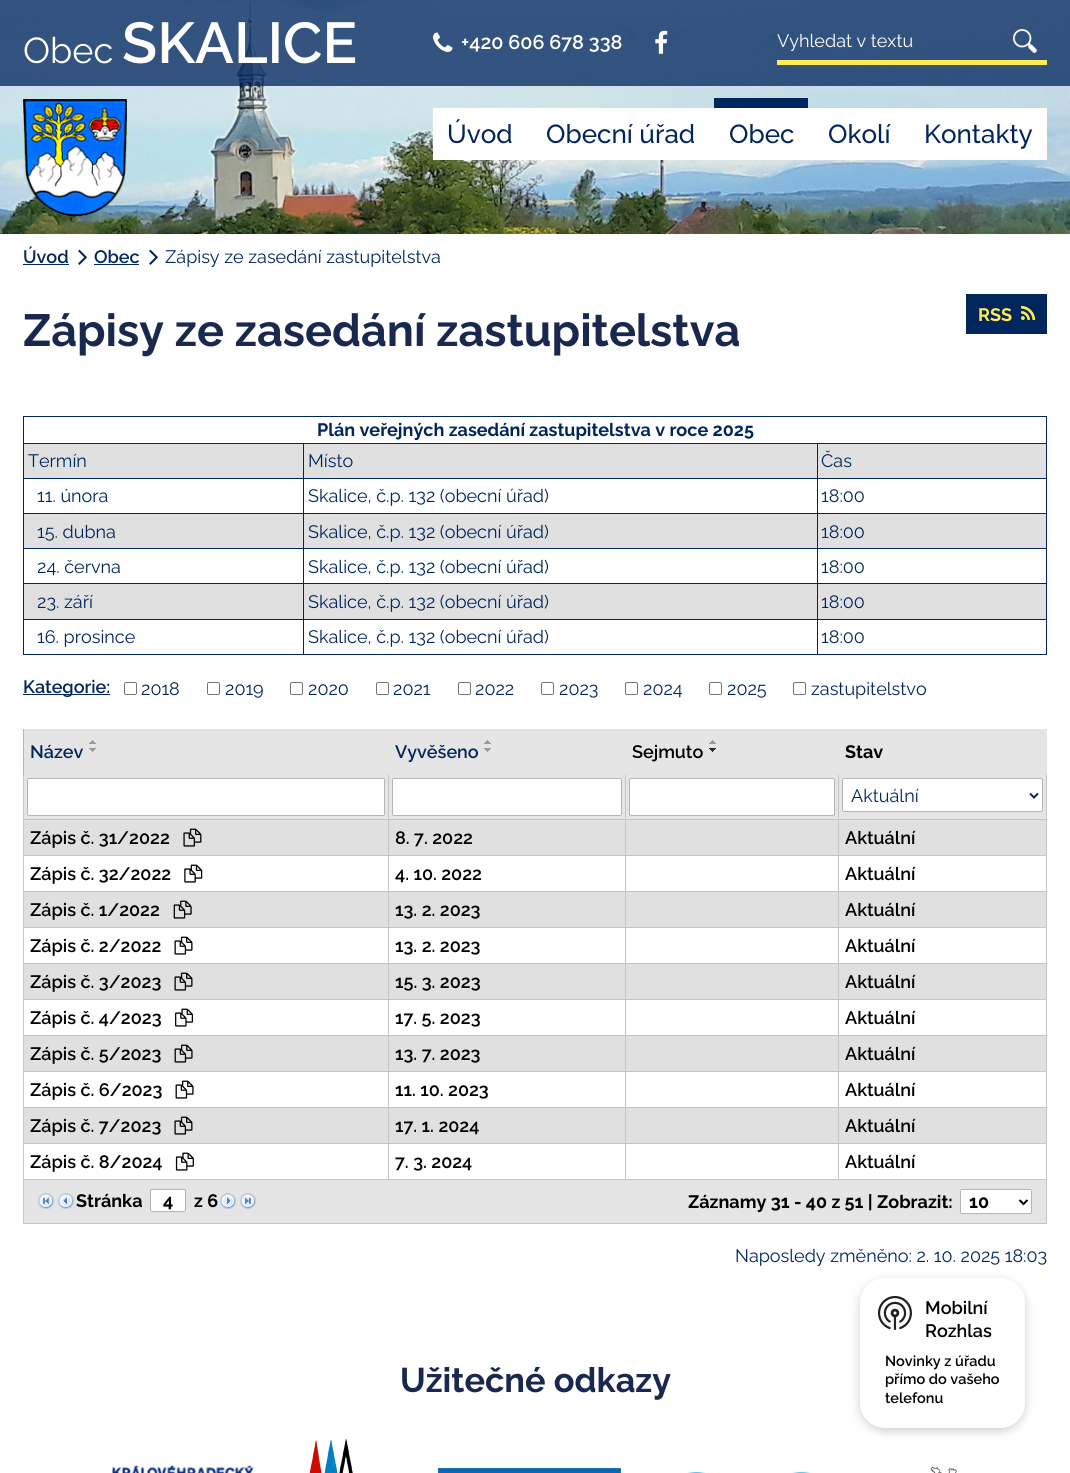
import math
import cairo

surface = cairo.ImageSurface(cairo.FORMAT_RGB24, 1070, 1473)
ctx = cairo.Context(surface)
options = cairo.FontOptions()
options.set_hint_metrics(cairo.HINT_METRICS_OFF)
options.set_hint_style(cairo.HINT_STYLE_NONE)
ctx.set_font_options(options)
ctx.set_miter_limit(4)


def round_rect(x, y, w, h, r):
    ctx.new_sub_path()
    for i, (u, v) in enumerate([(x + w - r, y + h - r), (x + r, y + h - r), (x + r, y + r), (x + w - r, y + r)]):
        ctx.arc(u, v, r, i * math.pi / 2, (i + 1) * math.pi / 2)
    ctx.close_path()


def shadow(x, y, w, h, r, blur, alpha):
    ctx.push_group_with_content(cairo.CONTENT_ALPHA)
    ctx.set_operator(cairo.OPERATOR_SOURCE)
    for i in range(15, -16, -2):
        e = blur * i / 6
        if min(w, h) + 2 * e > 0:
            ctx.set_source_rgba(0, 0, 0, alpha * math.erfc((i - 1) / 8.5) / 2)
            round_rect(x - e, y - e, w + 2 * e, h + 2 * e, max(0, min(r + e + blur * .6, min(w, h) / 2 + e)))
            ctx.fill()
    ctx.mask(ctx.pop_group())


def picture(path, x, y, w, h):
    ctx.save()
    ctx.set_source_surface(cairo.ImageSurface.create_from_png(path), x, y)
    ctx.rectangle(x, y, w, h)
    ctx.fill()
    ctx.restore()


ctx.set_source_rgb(1, 1, 1)
ctx.paint()
picture("img1.png", 0, 0, 1070, 234)
ctx.set_source_rgba(0.004, 0.149, 0.369, 0.76)
ctx.rectangle(0, 0, 1070, 86)
ctx.fill()
ctx.select_font_face("Raleway")
ctx.set_font_size(36)
ctx.set_source_rgb(1, 1, 1)
ctx.move_to(23, 63)
ctx.show_text("Obec")
ctx.select_font_face("Raleway SemiBold")
ctx.set_font_size(57.5)
ctx.move_to(122, 63)
ctx.show_text("SKALICE")
picture("img2.png", 23, 99, 104, 117)
picture("img3.png", 433, 32, 20, 20)
ctx.set_font_size(19.75)
ctx.move_to(461, 49)
ctx.show_text("+420 606 678 338")
picture("img4.png", 655, 30, 13, 24)
ctx.set_source_rgb(0.996, 0.922, 0.322)
ctx.rectangle(777, 60, 270, 5)
ctx.fill()
ctx.select_font_face("Raleway")
ctx.set_font_size(18)
ctx.set_source_rgb(1, 1, 1)
ctx.move_to(777, 47)
ctx.show_text("Vyhledat v textu")
picture("img5.png", 1013, 29, 24, 24)
ctx.rectangle(433, 108, 614, 52)
ctx.fill()
ctx.select_font_face("Raleway Medium")
ctx.set_font_size(26)
ctx.set_source_rgb(0.004, 0.149, 0.369)
ctx.move_to(447, 143)
ctx.show_text("Úvod")
ctx.move_to(546, 143)
ctx.show_text("Obecní úřad")
ctx.rectangle(714, 98, 94, 10)
ctx.fill()
ctx.move_to(729, 143)
ctx.show_text("Obec")
ctx.move_to(828, 143)
ctx.show_text("Okolí")
ctx.move_to(924, 143)
ctx.show_text("Kontakty")
ctx.select_font_face("Raleway SemiBold")
ctx.set_font_size(18)
ctx.move_to(23, 263)
ctx.show_text("Úvod")
ctx.rectangle(23, 264, 46, 1)
ctx.fill()
picture("img6.png", 78, 249, 9, 16)
ctx.move_to(94, 263)
ctx.show_text("Obec")
ctx.rectangle(94, 264, 45, 1)
ctx.fill()
picture("img6.png", 149, 249, 9, 16)
ctx.select_font_face("Raleway")
ctx.move_to(165, 263)
ctx.show_text("Zápisy ze zasedání zastupitelstva")
ctx.select_font_face("Raleway", cairo.FONT_SLANT_NORMAL, cairo.FONT_WEIGHT_BOLD)
ctx.set_font_size(45)
ctx.set_source_rgb(0.102, 0.157, 0.31)
ctx.move_to(23, 346)
ctx.show_text("Zápisy ze zasedání zastupitelstva")
ctx.set_source_rgb(0.004, 0.149, 0.369)
ctx.rectangle(966, 294, 81, 40)
ctx.fill()
ctx.set_font_size(18)
ctx.set_source_rgb(0.996, 0.922, 0.322)
ctx.move_to(978, 321)
ctx.show_text("RSS")
picture("img7.png", 1021, 305, 15, 15)
ctx.set_source_rgb(0.004, 0.149, 0.369)
ctx.rectangle(23, 416, 1024, 1)
ctx.fill()
ctx.rectangle(1046, 416, 1, 239)
ctx.fill()
ctx.rectangle(23, 654, 1024, 1)
ctx.fill()
ctx.rectangle(23, 416, 1, 239)
ctx.fill()
ctx.move_to(317, 436)
ctx.show_text("Plán veřejných zasedání zastupitelstva v roce 2025")
ctx.set_source_rgb(0.878, 0.878, 0.878)
ctx.rectangle(24, 444, 1022, 34)
ctx.fill()
ctx.set_source_rgb(0.004, 0.149, 0.369)
ctx.rectangle(817, 443, 230, 1)
ctx.fill()
ctx.rectangle(817, 478, 230, 1)
ctx.fill()
ctx.rectangle(817, 513, 230, 1)
ctx.fill()
ctx.set_source_rgb(0.878, 0.878, 0.878)
ctx.rectangle(24, 514, 1022, 34)
ctx.fill()
ctx.set_source_rgb(0.004, 0.149, 0.369)
ctx.rectangle(817, 548, 230, 1)
ctx.fill()
ctx.rectangle(817, 583, 230, 1)
ctx.fill()
ctx.set_source_rgb(0.878, 0.878, 0.878)
ctx.rectangle(24, 584, 1022, 35)
ctx.fill()
ctx.set_source_rgb(0.004, 0.149, 0.369)
ctx.rectangle(817, 619, 230, 1)
ctx.fill()
ctx.rectangle(817, 619, 1, 36)
ctx.fill()
ctx.rectangle(303, 619, 515, 1)
ctx.fill()
ctx.rectangle(817, 583, 1, 37)
ctx.fill()
ctx.rectangle(303, 583, 515, 1)
ctx.fill()
ctx.rectangle(817, 548, 1, 36)
ctx.fill()
ctx.rectangle(303, 548, 515, 1)
ctx.fill()
ctx.rectangle(817, 513, 1, 36)
ctx.fill()
ctx.rectangle(303, 513, 515, 1)
ctx.fill()
ctx.rectangle(817, 478, 1, 36)
ctx.fill()
ctx.rectangle(303, 478, 515, 1)
ctx.fill()
ctx.rectangle(817, 443, 1, 36)
ctx.fill()
ctx.rectangle(303, 443, 515, 1)
ctx.fill()
ctx.rectangle(303, 619, 1, 36)
ctx.fill()
ctx.rectangle(23, 619, 281, 1)
ctx.fill()
ctx.rectangle(303, 583, 1, 37)
ctx.fill()
ctx.rectangle(23, 583, 281, 1)
ctx.fill()
ctx.rectangle(303, 548, 1, 36)
ctx.fill()
ctx.rectangle(23, 548, 281, 1)
ctx.fill()
ctx.rectangle(303, 513, 1, 36)
ctx.fill()
ctx.rectangle(23, 513, 281, 1)
ctx.fill()
ctx.rectangle(303, 478, 1, 36)
ctx.fill()
ctx.rectangle(23, 478, 281, 1)
ctx.fill()
ctx.rectangle(303, 443, 1, 36)
ctx.fill()
ctx.rectangle(23, 443, 281, 1)
ctx.fill()
ctx.select_font_face("Raleway")
ctx.move_to(28, 467)
ctx.show_text("Termín")
ctx.move_to(308, 467)
ctx.show_text("Místo")
ctx.move_to(821, 467)
ctx.show_text("Čas")
ctx.move_to(37, 502)
ctx.show_text("11. února")
ctx.move_to(308, 502)
ctx.show_text("Skalice, č.p. 132 (obecní úřad)")
ctx.move_to(821, 502)
ctx.show_text("18:00")
ctx.move_to(37, 538)
ctx.show_text("15. dubna")
ctx.move_to(308, 538)
ctx.show_text("Skalice, č.p. 132 (obecní úřad)")
ctx.move_to(821, 538)
ctx.show_text("18:00")
ctx.move_to(37, 573)
ctx.show_text("24. června")
ctx.move_to(308, 573)
ctx.show_text("Skalice, č.p. 132 (obecní úřad)")
ctx.move_to(821, 573)
ctx.show_text("18:00")
ctx.move_to(37, 608)
ctx.show_text("23. září")
ctx.move_to(308, 608)
ctx.show_text("Skalice, č.p. 132 (obecní úřad)")
ctx.move_to(821, 608)
ctx.show_text("18:00")
ctx.move_to(37, 643)
ctx.show_text("16. prosince")
ctx.move_to(308, 643)
ctx.show_text("Skalice, č.p. 132 (obecní úřad)")
ctx.move_to(821, 643)
ctx.show_text("18:00")
ctx.rectangle(23, 694, 87, 1)
ctx.fill()
ctx.select_font_face("Raleway SemiBold")
ctx.move_to(23, 693)
ctx.show_text("Kategorie:")
round_rect(124.5, 682.5, 12, 12, 1.5)
ctx.set_source_rgb(0.463, 0.463, 0.463)
ctx.set_line_width(1)
ctx.stroke()
ctx.select_font_face("Raleway")
ctx.set_source_rgb(0.004, 0.149, 0.369)
ctx.move_to(141, 695)
ctx.show_text("2018")
round_rect(207.5, 682.5, 12, 12, 1.5)
ctx.set_source_rgb(0.463, 0.463, 0.463)
ctx.stroke()
ctx.set_source_rgb(0.004, 0.149, 0.369)
ctx.move_to(225, 695)
ctx.show_text("2019")
round_rect(290.5, 682.5, 12, 12, 1.5)
ctx.set_source_rgb(0.463, 0.463, 0.463)
ctx.stroke()
ctx.set_source_rgb(0.004, 0.149, 0.369)
ctx.move_to(308, 695)
ctx.show_text("2020")
round_rect(376.5, 682.5, 12, 12, 1.5)
ctx.set_source_rgb(0.463, 0.463, 0.463)
ctx.stroke()
ctx.set_source_rgb(0.004, 0.149, 0.369)
ctx.move_to(393, 695)
ctx.show_text("2021")
round_rect(458.5, 682.5, 12, 12, 1.5)
ctx.set_source_rgb(0.463, 0.463, 0.463)
ctx.stroke()
ctx.set_source_rgb(0.004, 0.149, 0.369)
ctx.move_to(475, 695)
ctx.show_text("2022")
round_rect(541.5, 682.5, 12, 12, 1.5)
ctx.set_source_rgb(0.463, 0.463, 0.463)
ctx.stroke()
ctx.set_source_rgb(0.004, 0.149, 0.369)
ctx.move_to(559, 695)
ctx.show_text("2023")
round_rect(625.5, 682.5, 12, 12, 1.5)
ctx.set_source_rgb(0.463, 0.463, 0.463)
ctx.stroke()
ctx.set_source_rgb(0.004, 0.149, 0.369)
ctx.move_to(643, 695)
ctx.show_text("2024")
round_rect(709.5, 682.5, 12, 12, 1.5)
ctx.set_source_rgb(0.463, 0.463, 0.463)
ctx.stroke()
ctx.set_source_rgb(0.004, 0.149, 0.369)
ctx.move_to(727, 695)
ctx.show_text("2025")
round_rect(793.5, 682.5, 12, 12, 1.5)
ctx.set_source_rgb(0.463, 0.463, 0.463)
ctx.stroke()
ctx.set_source_rgb(0.004, 0.149, 0.369)
ctx.move_to(811, 695)
ctx.show_text("zastupitelstvo")
ctx.set_source_rgb(0.773, 0.773, 0.773)
ctx.rectangle(838, 819, 209, 1)
ctx.fill()
ctx.set_source_rgb(0.878, 0.878, 0.878)
ctx.rectangle(24, 820, 1022, 35)
ctx.fill()
ctx.set_source_rgb(0.773, 0.773, 0.773)
ctx.rectangle(838, 855, 209, 1)
ctx.fill()
ctx.rectangle(838, 891, 209, 1)
ctx.fill()
ctx.set_source_rgb(0.878, 0.878, 0.878)
ctx.rectangle(24, 892, 1022, 35)
ctx.fill()
ctx.set_source_rgb(0.773, 0.773, 0.773)
ctx.rectangle(838, 927, 209, 1)
ctx.fill()
ctx.rectangle(838, 963, 209, 1)
ctx.fill()
ctx.set_source_rgb(0.878, 0.878, 0.878)
ctx.rectangle(24, 964, 1022, 35)
ctx.fill()
ctx.set_source_rgb(0.773, 0.773, 0.773)
ctx.rectangle(838, 999, 209, 1)
ctx.fill()
ctx.rectangle(838, 1035, 209, 1)
ctx.fill()
ctx.set_source_rgb(0.878, 0.878, 0.878)
ctx.rectangle(24, 1036, 1022, 35)
ctx.fill()
ctx.set_source_rgb(0.773, 0.773, 0.773)
ctx.rectangle(838, 1071, 209, 1)
ctx.fill()
ctx.rectangle(838, 1107, 209, 1)
ctx.fill()
ctx.set_source_rgb(0.878, 0.878, 0.878)
ctx.rectangle(24, 1108, 1022, 35)
ctx.fill()
ctx.set_source_rgb(0.773, 0.773, 0.773)
ctx.rectangle(838, 1143, 209, 1)
ctx.fill()
ctx.rectangle(1046, 1143, 1, 37)
ctx.fill()
ctx.rectangle(838, 1179, 209, 1)
ctx.fill()
ctx.rectangle(838, 1143, 1, 37)
ctx.fill()
ctx.rectangle(625, 1143, 214, 1)
ctx.fill()
ctx.rectangle(838, 1107, 1, 37)
ctx.fill()
ctx.rectangle(625, 1107, 214, 1)
ctx.fill()
ctx.rectangle(838, 1071, 1, 37)
ctx.fill()
ctx.rectangle(625, 1071, 214, 1)
ctx.fill()
ctx.rectangle(838, 1035, 1, 37)
ctx.fill()
ctx.rectangle(625, 1035, 214, 1)
ctx.fill()
ctx.rectangle(838, 999, 1, 37)
ctx.fill()
ctx.rectangle(625, 999, 214, 1)
ctx.fill()
ctx.rectangle(838, 963, 1, 37)
ctx.fill()
ctx.rectangle(625, 963, 214, 1)
ctx.fill()
ctx.rectangle(838, 927, 1, 37)
ctx.fill()
ctx.rectangle(625, 927, 214, 1)
ctx.fill()
ctx.rectangle(838, 891, 1, 37)
ctx.fill()
ctx.rectangle(625, 891, 214, 1)
ctx.fill()
ctx.rectangle(838, 855, 1, 37)
ctx.fill()
ctx.rectangle(625, 855, 214, 1)
ctx.fill()
ctx.rectangle(838, 819, 1, 37)
ctx.fill()
ctx.rectangle(625, 819, 214, 1)
ctx.fill()
ctx.rectangle(625, 1179, 214, 1)
ctx.fill()
ctx.rectangle(625, 1143, 1, 37)
ctx.fill()
ctx.rectangle(388, 1143, 238, 1)
ctx.fill()
ctx.rectangle(625, 1107, 1, 37)
ctx.fill()
ctx.rectangle(388, 1107, 238, 1)
ctx.fill()
ctx.rectangle(625, 1071, 1, 37)
ctx.fill()
ctx.rectangle(388, 1071, 238, 1)
ctx.fill()
ctx.rectangle(625, 1035, 1, 37)
ctx.fill()
ctx.rectangle(388, 1035, 238, 1)
ctx.fill()
ctx.rectangle(625, 999, 1, 37)
ctx.fill()
ctx.rectangle(388, 999, 238, 1)
ctx.fill()
ctx.rectangle(625, 963, 1, 37)
ctx.fill()
ctx.rectangle(388, 963, 238, 1)
ctx.fill()
ctx.rectangle(625, 927, 1, 37)
ctx.fill()
ctx.rectangle(388, 927, 238, 1)
ctx.fill()
ctx.rectangle(625, 891, 1, 37)
ctx.fill()
ctx.rectangle(388, 891, 238, 1)
ctx.fill()
ctx.rectangle(625, 855, 1, 37)
ctx.fill()
ctx.rectangle(388, 855, 238, 1)
ctx.fill()
ctx.rectangle(625, 819, 1, 37)
ctx.fill()
ctx.rectangle(388, 819, 238, 1)
ctx.fill()
ctx.rectangle(388, 1179, 238, 1)
ctx.fill()
ctx.rectangle(388, 1143, 1, 37)
ctx.fill()
ctx.rectangle(23, 1143, 366, 1)
ctx.fill()
ctx.rectangle(388, 1107, 1, 37)
ctx.fill()
ctx.rectangle(23, 1107, 366, 1)
ctx.fill()
ctx.rectangle(388, 1071, 1, 37)
ctx.fill()
ctx.rectangle(23, 1071, 366, 1)
ctx.fill()
ctx.rectangle(388, 1035, 1, 37)
ctx.fill()
ctx.rectangle(23, 1035, 366, 1)
ctx.fill()
ctx.rectangle(388, 999, 1, 37)
ctx.fill()
ctx.rectangle(23, 999, 366, 1)
ctx.fill()
ctx.rectangle(388, 963, 1, 37)
ctx.fill()
ctx.rectangle(23, 963, 366, 1)
ctx.fill()
ctx.rectangle(388, 927, 1, 37)
ctx.fill()
ctx.rectangle(23, 927, 366, 1)
ctx.fill()
ctx.rectangle(388, 891, 1, 37)
ctx.fill()
ctx.rectangle(23, 891, 366, 1)
ctx.fill()
ctx.rectangle(388, 855, 1, 37)
ctx.fill()
ctx.rectangle(23, 855, 366, 1)
ctx.fill()
ctx.rectangle(388, 819, 1, 37)
ctx.fill()
ctx.rectangle(23, 819, 366, 1)
ctx.fill()
ctx.rectangle(23, 1179, 366, 1)
ctx.fill()
ctx.rectangle(23, 1143, 1, 37)
ctx.fill()
ctx.rectangle(23, 1107, 1, 37)
ctx.fill()
ctx.rectangle(23, 1071, 1, 37)
ctx.fill()
ctx.rectangle(23, 1035, 1, 37)
ctx.fill()
ctx.rectangle(23, 999, 1, 37)
ctx.fill()
ctx.rectangle(23, 963, 1, 37)
ctx.fill()
ctx.rectangle(23, 927, 1, 37)
ctx.fill()
ctx.rectangle(23, 891, 1, 37)
ctx.fill()
ctx.rectangle(23, 855, 1, 37)
ctx.fill()
ctx.rectangle(23, 774, 1, 82)
ctx.fill()
ctx.set_source_rgb(0.71, 0.71, 0.71)
ctx.rectangle(23, 729, 1, 46)
ctx.fill()
ctx.set_source_rgb(0.898, 0.898, 0.898)
ctx.rectangle(24, 775, 1022, 44)
ctx.fill()
ctx.set_source_rgb(0.773, 0.773, 0.773)
ctx.rectangle(388, 774, 1, 46)
ctx.fill()
ctx.rectangle(625, 774, 1, 46)
ctx.fill()
ctx.rectangle(838, 774, 1, 46)
ctx.fill()
ctx.rectangle(1046, 1107, 1, 37)
ctx.fill()
ctx.rectangle(1046, 1071, 1, 37)
ctx.fill()
ctx.rectangle(1046, 1035, 1, 37)
ctx.fill()
ctx.rectangle(1046, 999, 1, 37)
ctx.fill()
ctx.rectangle(1046, 963, 1, 37)
ctx.fill()
ctx.rectangle(1046, 927, 1, 37)
ctx.fill()
ctx.rectangle(1046, 891, 1, 37)
ctx.fill()
ctx.rectangle(1046, 855, 1, 37)
ctx.fill()
ctx.rectangle(1046, 774, 1, 82)
ctx.fill()
ctx.set_source_rgb(0.898, 0.898, 0.898)
ctx.rectangle(24, 729, 1023, 46)
ctx.fill()
ctx.select_font_face("Raleway SemiBold")
ctx.set_source_rgb(0.004, 0.149, 0.369)
ctx.move_to(30, 758)
ctx.show_text("Název")
picture("img8.png", 89, 740, 7, 4)
picture("img9.png", 89, 748, 7, 4)
ctx.move_to(395, 758)
ctx.show_text("Vyvěšeno")
picture("img8.png", 484, 740, 7, 4)
picture("img9.png", 484, 748, 7, 4)
ctx.set_source_rgb(0, 0, 0)
ctx.move_to(632, 758)
ctx.show_text("Sejmuto")
picture("img8.png", 709, 740, 7, 4)
picture("img10.png", 709, 748, 7, 4)
ctx.select_font_face("Raleway", cairo.FONT_SLANT_NORMAL, cairo.FONT_WEIGHT_BOLD)
ctx.move_to(845, 758)
ctx.show_text("Stav")
ctx.set_source_rgb(1, 1, 1)
round_rect(27.5, 778.5, 357, 37, 1.5)
ctx.fill_preserve()
ctx.set_source_rgb(0.71, 0.71, 0.71)
ctx.stroke()
ctx.set_source_rgb(1, 1, 1)
round_rect(392.5, 778.5, 229, 37, 1.5)
ctx.fill_preserve()
ctx.set_source_rgb(0.71, 0.71, 0.71)
ctx.stroke()
ctx.set_source_rgb(1, 1, 1)
round_rect(629.5, 778.5, 205, 37, 1.5)
ctx.fill_preserve()
ctx.set_source_rgb(0.71, 0.71, 0.71)
ctx.stroke()
ctx.set_source_rgb(1, 1, 1)
round_rect(842.5, 778.5, 200, 33, 1.5)
ctx.fill_preserve()
ctx.set_source_rgb(0.71, 0.71, 0.71)
ctx.stroke()
ctx.new_path()
ctx.move_to(1030, 793.5)
ctx.line_to(1034, 797.5)
ctx.line_to(1038, 793.5)
ctx.set_source_rgb(0.004, 0.149, 0.369)
ctx.set_line_width(2)
ctx.stroke()
ctx.select_font_face("Raleway")
ctx.move_to(851, 802)
ctx.show_text("Aktuální")
ctx.select_font_face("Raleway SemiBold")
ctx.set_source_rgb(0, 0, 0)
ctx.move_to(30, 844)
ctx.show_text("Zápis č. 31/2022")
picture("img11.png", 183, 828, 19, 19)
ctx.move_to(395, 844)
ctx.show_text("8. 7. 2022")
ctx.move_to(845, 844)
ctx.show_text("Aktuální")
ctx.move_to(30, 880)
ctx.show_text("Zápis č. 32/2022")
picture("img12.png", 184, 864, 19, 19)
ctx.move_to(395, 880)
ctx.show_text("4. 10. 2022")
ctx.move_to(845, 880)
ctx.show_text("Aktuální")
ctx.move_to(30, 916)
ctx.show_text("Zápis č. 1/2022")
picture("img13.png", 173, 900, 19, 19)
ctx.move_to(395, 916)
ctx.show_text("13. 2. 2023")
ctx.move_to(845, 916)
ctx.show_text("Aktuální")
ctx.move_to(30, 952)
ctx.show_text("Zápis č. 2/2022")
picture("img14.png", 174, 936, 19, 19)
ctx.move_to(395, 952)
ctx.show_text("13. 2. 2023")
ctx.move_to(845, 952)
ctx.show_text("Aktuální")
ctx.move_to(30, 988)
ctx.show_text("Zápis č. 3/2023")
picture("img15.png", 174, 972, 19, 19)
ctx.move_to(395, 988)
ctx.show_text("15. 3. 2023")
ctx.move_to(845, 988)
ctx.show_text("Aktuální")
ctx.move_to(30, 1024)
ctx.show_text("Zápis č. 4/2023")
picture("img16.png", 175, 1008, 19, 19)
ctx.move_to(395, 1024)
ctx.show_text("17. 5. 2023")
ctx.move_to(845, 1024)
ctx.show_text("Aktuální")
ctx.move_to(30, 1060)
ctx.show_text("Zápis č. 5/2023")
picture("img17.png", 174, 1044, 19, 19)
ctx.move_to(395, 1060)
ctx.show_text("13. 7. 2023")
ctx.move_to(845, 1060)
ctx.show_text("Aktuální")
ctx.move_to(30, 1096)
ctx.show_text("Zápis č. 6/2023")
picture("img18.png", 175, 1080, 19, 19)
ctx.move_to(395, 1096)
ctx.show_text("11. 10. 2023")
ctx.move_to(845, 1096)
ctx.show_text("Aktuální")
ctx.move_to(30, 1132)
ctx.show_text("Zápis č. 7/2023")
picture("img19.png", 174, 1116, 19, 19)
ctx.move_to(395, 1132)
ctx.show_text("17. 1. 2024")
ctx.move_to(845, 1132)
ctx.show_text("Aktuální")
ctx.move_to(30, 1168)
ctx.show_text("Zápis č. 8/2024")
picture("img20.png", 175, 1152, 19, 19)
ctx.move_to(395, 1168)
ctx.show_text("7. 3. 2024")
ctx.move_to(845, 1168)
ctx.show_text("Aktuální")
ctx.set_source_rgb(0.898, 0.898, 0.898)
ctx.rectangle(24, 1180, 1022, 43)
ctx.fill()
ctx.set_source_rgb(0.773, 0.773, 0.773)
ctx.rectangle(1046, 1179, 1, 45)
ctx.fill()
ctx.rectangle(23, 1223, 1024, 1)
ctx.fill()
ctx.rectangle(23, 1179, 1, 45)
ctx.fill()
picture("img21.png", 38, 1193, 16, 16)
picture("img22.png", 58, 1193, 16, 16)
ctx.select_font_face("Raleway", cairo.FONT_SLANT_NORMAL, cairo.FONT_WEIGHT_BOLD)
ctx.set_source_rgb(0, 0, 0)
ctx.move_to(76, 1207)
ctx.show_text("Stránka")
ctx.set_source_rgb(1, 1, 1)
round_rect(150.5, 1189.5, 35, 22, 1.5)
ctx.fill_preserve()
ctx.set_source_rgb(0.71, 0.71, 0.71)
ctx.set_line_width(1)
ctx.stroke()
ctx.set_source_rgb(0, 0, 0)
ctx.move_to(163, 1207)
ctx.show_text("4")
ctx.move_to(194, 1207)
ctx.show_text("z 6")
picture("img23.png", 220, 1193, 16, 16)
picture("img24.png", 240, 1193, 16, 16)
ctx.move_to(688, 1208)
ctx.show_text("Záznamy 31 - 40 z 51 | Zobrazit:")
ctx.set_source_rgb(1, 1, 1)
round_rect(960.5, 1189.5, 71, 24, 1.5)
ctx.fill_preserve()
ctx.set_source_rgb(0.71, 0.71, 0.71)
ctx.stroke()
ctx.new_path()
ctx.move_to(1019.5, 1200)
ctx.line_to(1023.5, 1204)
ctx.line_to(1027.5, 1200)
ctx.set_source_rgb(0, 0, 0)
ctx.set_line_width(2)
ctx.stroke()
ctx.move_to(969, 1208)
ctx.show_text("10")
ctx.select_font_face("Raleway")
ctx.set_source_rgb(0.004, 0.149, 0.369)
ctx.move_to(735, 1262)
ctx.show_text("Naposledy změněno: 2. 10. 2025 18:03")
ctx.set_source_rgb(0, 0, 0)
shadow(860, 1281, 165, 150, 25, 5, 0.2)
ctx.set_source_rgb(1, 1, 1)
round_rect(860, 1278, 165, 150, 25)
ctx.fill()
picture("img25.png", 878, 1296, 34, 34)
ctx.select_font_face("Raleway SemiBold")
ctx.set_source_rgb(0, 0, 0)
ctx.move_to(925, 1314)
ctx.show_text("Mobilní")
ctx.move_to(925, 1337)
ctx.show_text("Rozhlas")
ctx.set_font_size(14.5)
ctx.move_to(885, 1366)
ctx.show_text("Novinky z úřadu")
ctx.move_to(885, 1384)
ctx.show_text("přímo do vašeho")
ctx.move_to(885, 1403)
ctx.show_text("telefonu")
ctx.select_font_face("Raleway", cairo.FONT_SLANT_NORMAL, cairo.FONT_WEIGHT_BOLD)
ctx.set_font_size(34.25)
ctx.set_source_rgb(0.102, 0.157, 0.31)
ctx.move_to(400, 1392)
ctx.show_text("Užitečné odkazy")
picture("img26.png", 112, 1465, 142, 8)
picture("img27.png", 309, 1438, 44, 35)
picture("img28.png", 438, 1468, 183, 5)
picture("img29.png", 687, 1472, 124, 1)
picture("img30.png", 930, 1467, 27, 6)
surface.write_to_png("page.png")
